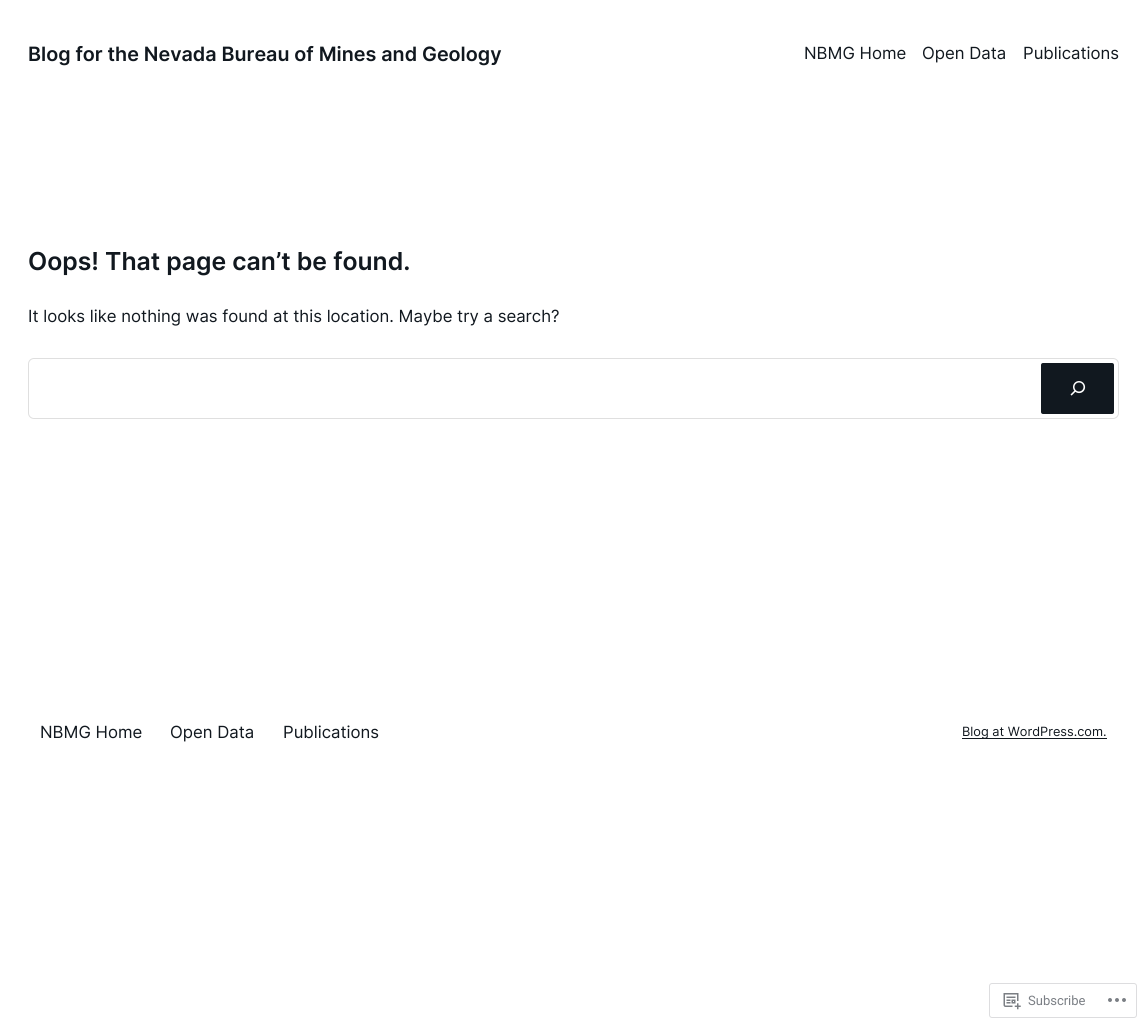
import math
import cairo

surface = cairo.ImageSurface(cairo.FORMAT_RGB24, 1147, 1028)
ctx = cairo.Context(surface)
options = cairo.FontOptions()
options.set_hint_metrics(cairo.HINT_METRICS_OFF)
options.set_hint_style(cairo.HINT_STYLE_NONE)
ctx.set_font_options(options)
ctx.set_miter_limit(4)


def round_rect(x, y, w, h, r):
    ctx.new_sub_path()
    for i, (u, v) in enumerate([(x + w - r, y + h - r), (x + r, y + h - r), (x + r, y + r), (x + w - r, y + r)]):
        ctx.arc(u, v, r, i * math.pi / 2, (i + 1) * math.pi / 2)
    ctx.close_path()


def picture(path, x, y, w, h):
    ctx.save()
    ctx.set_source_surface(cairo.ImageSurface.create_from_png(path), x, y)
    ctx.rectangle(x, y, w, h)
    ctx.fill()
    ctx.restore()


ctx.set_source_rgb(1, 1, 1)
ctx.paint()
ctx.select_font_face("Inter SemiBold")
ctx.set_font_size(19.75)
ctx.set_source_rgb(0.067, 0.094, 0.122)
ctx.move_to(28, 61)
ctx.show_text("Blog for the Nevada Bureau of Mines and Geology")
ctx.select_font_face("Inter")
ctx.set_font_size(16.75)
ctx.move_to(804, 59)
ctx.show_text("NBMG Home")
ctx.move_to(922, 59)
ctx.show_text("Open Data")
ctx.move_to(1023, 59)
ctx.show_text("Publications")
ctx.select_font_face("Inter SemiBold")
ctx.set_font_size(24.75)
ctx.move_to(28, 270)
ctx.show_text("Oops! That page can’t be found.")
ctx.select_font_face("Inter")
ctx.set_font_size(16.75)
ctx.move_to(28, 322)
ctx.show_text("It looks like nothing was found at this location. Maybe try a search?")
round_rect(28.5, 358.5, 1090, 60, 5.5)
ctx.set_source_rgb(0.875, 0.875, 0.875)
ctx.set_line_width(1)
ctx.stroke()
ctx.set_source_rgb(0.067, 0.094, 0.122)
round_rect(1041, 363, 73, 51, 2)
ctx.fill()
picture("img1.png", 1070, 381, 16, 15)
ctx.move_to(40, 738)
ctx.show_text("NBMG Home")
ctx.move_to(170, 738)
ctx.show_text("Open Data")
ctx.move_to(283, 738)
ctx.show_text("Publications")
ctx.rectangle(962, 738, 145, 1)
ctx.fill()
ctx.set_font_size(12.75)
ctx.move_to(962, 736)
ctx.show_text("Blog at WordPress.com.")
round_rect(989.5, 983.5, 147, 34, 2.5)
ctx.set_source_rgb(0.867, 0.867, 0.875)
ctx.stroke()
picture("img2.png", 1003, 993, 18, 17)
ctx.select_font_face("Roboto")
ctx.set_font_size(13)
ctx.set_source_rgb(0.482, 0.498, 0.522)
ctx.move_to(1028, 1005)
ctx.show_text("Subscribe")
picture("img3.png", 1108, 998, 18, 4)
surface.write_to_png("page.png")
